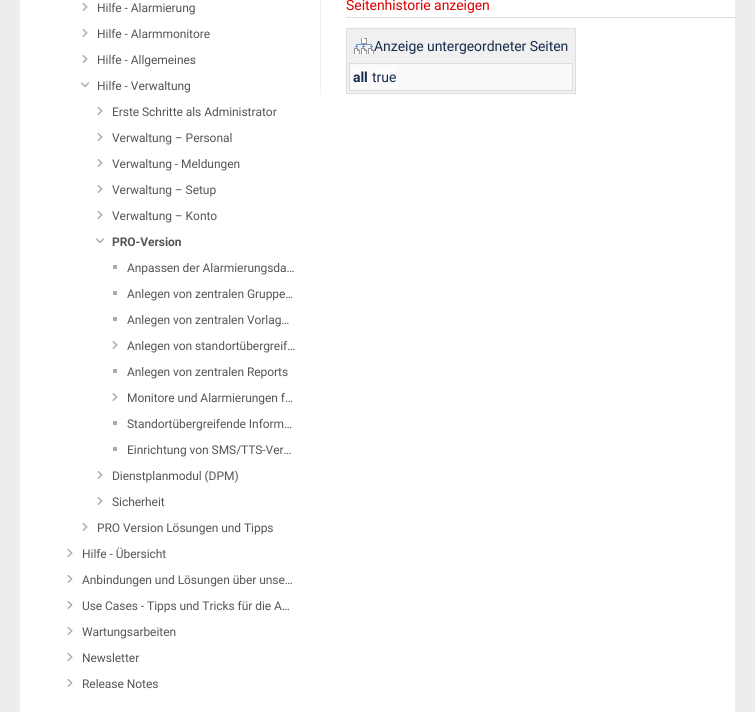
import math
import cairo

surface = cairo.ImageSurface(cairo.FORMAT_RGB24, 755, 712)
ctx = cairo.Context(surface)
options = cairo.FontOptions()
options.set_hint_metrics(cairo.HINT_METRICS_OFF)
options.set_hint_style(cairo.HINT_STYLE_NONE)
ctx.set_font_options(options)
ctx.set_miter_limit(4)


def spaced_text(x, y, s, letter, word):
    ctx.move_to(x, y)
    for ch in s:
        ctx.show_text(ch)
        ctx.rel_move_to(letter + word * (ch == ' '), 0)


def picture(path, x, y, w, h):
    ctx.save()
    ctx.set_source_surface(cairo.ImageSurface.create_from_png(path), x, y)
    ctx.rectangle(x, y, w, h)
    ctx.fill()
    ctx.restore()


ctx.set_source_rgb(0.929, 0.929, 0.929)
ctx.paint()
ctx.set_source_rgb(1, 1, 1)
ctx.rectangle(20, 0, 715, 712)
ctx.fill()
picture("img1.png", 82, 3, 6, 8)
ctx.select_font_face("Roboto")
ctx.set_font_size(12)
ctx.set_source_rgb(0.333, 0.333, 0.333)
spaced_text(97, 12, "Hilfe - Alarmierung", -0.05, 0)
picture("img1.png", 82, 29, 6, 8)
spaced_text(97, 38, "Hilfe - Alarmmonitore", -0.05, 0)
picture("img1.png", 82, 55, 6, 8)
spaced_text(97, 64, "Hilfe - Allgemeines", -0.05, 0)
picture("img2.png", 81, 82, 9, 6)
spaced_text(97, 90, "Hilfe - Verwaltung", -0.05, 0)
picture("img1.png", 97, 107, 6, 8)
spaced_text(112, 116, "Erste Schritte als Administrator", -0.05, 0)
picture("img1.png", 97, 133, 6, 8)
spaced_text(112, 142, "Verwaltung – Personal", -0.05, 0)
picture("img1.png", 97, 159, 6, 8)
spaced_text(112, 168, "Verwaltung - Meldungen", -0.05, 0)
picture("img1.png", 97, 185, 6, 8)
spaced_text(112, 194, "Verwaltung – Setup", -0.05, 0)
picture("img1.png", 97, 211, 6, 8)
spaced_text(112, 220, "Verwaltung – Konto", -0.05, 0)
picture("img2.png", 96, 238, 9, 6)
ctx.select_font_face("Roboto", cairo.FONT_SLANT_NORMAL, cairo.FONT_WEIGHT_BOLD)
spaced_text(112, 246, "PRO-Version", -0.05, 0)
ctx.set_source_rgb(0.671, 0.671, 0.671)
ctx.rectangle(113, 265, 4, 4)
ctx.fill()
ctx.select_font_face("Roboto")
ctx.set_source_rgb(0.333, 0.333, 0.333)
spaced_text(127, 272, "Anpassen der Alarmierungsda…", -0.05, 0)
ctx.set_source_rgb(0.671, 0.671, 0.671)
ctx.rectangle(113, 291, 4, 4)
ctx.fill()
ctx.set_source_rgb(0.333, 0.333, 0.333)
spaced_text(127, 298, "Anlegen von zentralen Gruppe…", -0.05, 0)
ctx.set_source_rgb(0.671, 0.671, 0.671)
ctx.rectangle(113, 317, 4, 4)
ctx.fill()
ctx.set_source_rgb(0.333, 0.333, 0.333)
spaced_text(127, 324, "Anlegen von zentralen Vorlag…", -0.05, 0)
picture("img1.png", 112, 341, 6, 8)
spaced_text(127, 350, "Anlegen von standortübergreif…", -0.05, 0)
ctx.set_source_rgb(0.671, 0.671, 0.671)
ctx.rectangle(113, 369, 4, 4)
ctx.fill()
ctx.set_source_rgb(0.333, 0.333, 0.333)
spaced_text(127, 376, "Anlegen von zentralen Reports", -0.05, 0)
picture("img1.png", 112, 393, 6, 8)
spaced_text(127, 402, "Monitore und Alarmierungen f…", -0.05, 0)
ctx.set_source_rgb(0.671, 0.671, 0.671)
ctx.rectangle(113, 421, 4, 4)
ctx.fill()
ctx.set_source_rgb(0.333, 0.333, 0.333)
spaced_text(127, 428, "Standortübergreifende Inform…", -0.05, 0)
ctx.set_source_rgb(0.671, 0.671, 0.671)
ctx.rectangle(113, 447, 4, 4)
ctx.fill()
ctx.set_source_rgb(0.333, 0.333, 0.333)
spaced_text(127, 454, "Einrichtung von SMS/TTS-Ver…", -0.05, 0)
picture("img1.png", 97, 471, 6, 8)
spaced_text(112, 480, "Dienstplanmodul (DPM)", -0.05, 0)
picture("img1.png", 97, 497, 6, 8)
spaced_text(112, 506, "Sicherheit", -0.05, 0)
picture("img1.png", 82, 523, 6, 8)
spaced_text(97, 532, "PRO Version Lösungen und Tipps", -0.05, 0)
picture("img1.png", 67, 549, 6, 8)
spaced_text(82, 558, "Hilfe - Übersicht", -0.05, 0)
picture("img1.png", 67, 575, 6, 8)
spaced_text(82, 584, "Anbindungen und Lösungen über unse…", -0.05, 0)
picture("img1.png", 67, 601, 6, 8)
spaced_text(82, 610, "Use Cases - Tipps und Tricks für die A…", -0.05, 0)
picture("img1.png", 67, 627, 6, 8)
spaced_text(82, 636, "Wartungsarbeiten", -0.05, 0)
picture("img1.png", 67, 653, 6, 8)
spaced_text(82, 662, "Newsletter", -0.05, 0)
picture("img1.png", 67, 679, 6, 8)
spaced_text(82, 688, "Release Notes", -0.05, 0)
ctx.set_source_rgb(0.949, 0.949, 0.949)
ctx.rectangle(320, 0, 1, 94)
ctx.fill()
ctx.set_source_rgb(0.867, 0.867, 0.867)
ctx.rectangle(346, 17, 389, 1)
ctx.fill()
ctx.set_font_size(14)
ctx.set_source_rgb(0.867, 0, 0)
spaced_text(346, 10, "Seitenhistorie anzeigen", -0.05, 0)
ctx.set_source_rgb(0.941, 0.941, 0.941)
ctx.rectangle(346.5, 28.5, 229, 65)
ctx.fill_preserve()
ctx.set_source_rgb(0.867, 0.867, 0.867)
ctx.set_line_width(1)
ctx.stroke()
picture("img3.png", 354, 38, 20, 16)
ctx.set_source_rgb(0.09, 0.169, 0.302)
spaced_text(374, 51, "Anzeige untergeordneter Seiten", -0.05, 0)
ctx.set_source_rgb(0.973, 0.973, 0.973)
ctx.rectangle(349.5, 63.5, 223, 27)
ctx.fill_preserve()
ctx.set_source_rgb(0.867, 0.867, 0.867)
ctx.stroke()
ctx.set_source_rgb(0.988, 0.988, 0.988)
ctx.rectangle(352, 66, 17, 22)
ctx.fill()
ctx.select_font_face("Roboto", cairo.FONT_SLANT_NORMAL, cairo.FONT_WEIGHT_BOLD)
ctx.set_source_rgb(0.09, 0.169, 0.302)
spaced_text(353, 82, "all", -0.05, 0)
ctx.set_source_rgb(0.988, 0.988, 0.988)
ctx.rectangle(371, 66, 26, 22)
ctx.fill()
ctx.select_font_face("Roboto")
ctx.set_source_rgb(0.09, 0.169, 0.302)
spaced_text(372, 82, "true", -0.05, 0)
surface.write_to_png("page.png")
